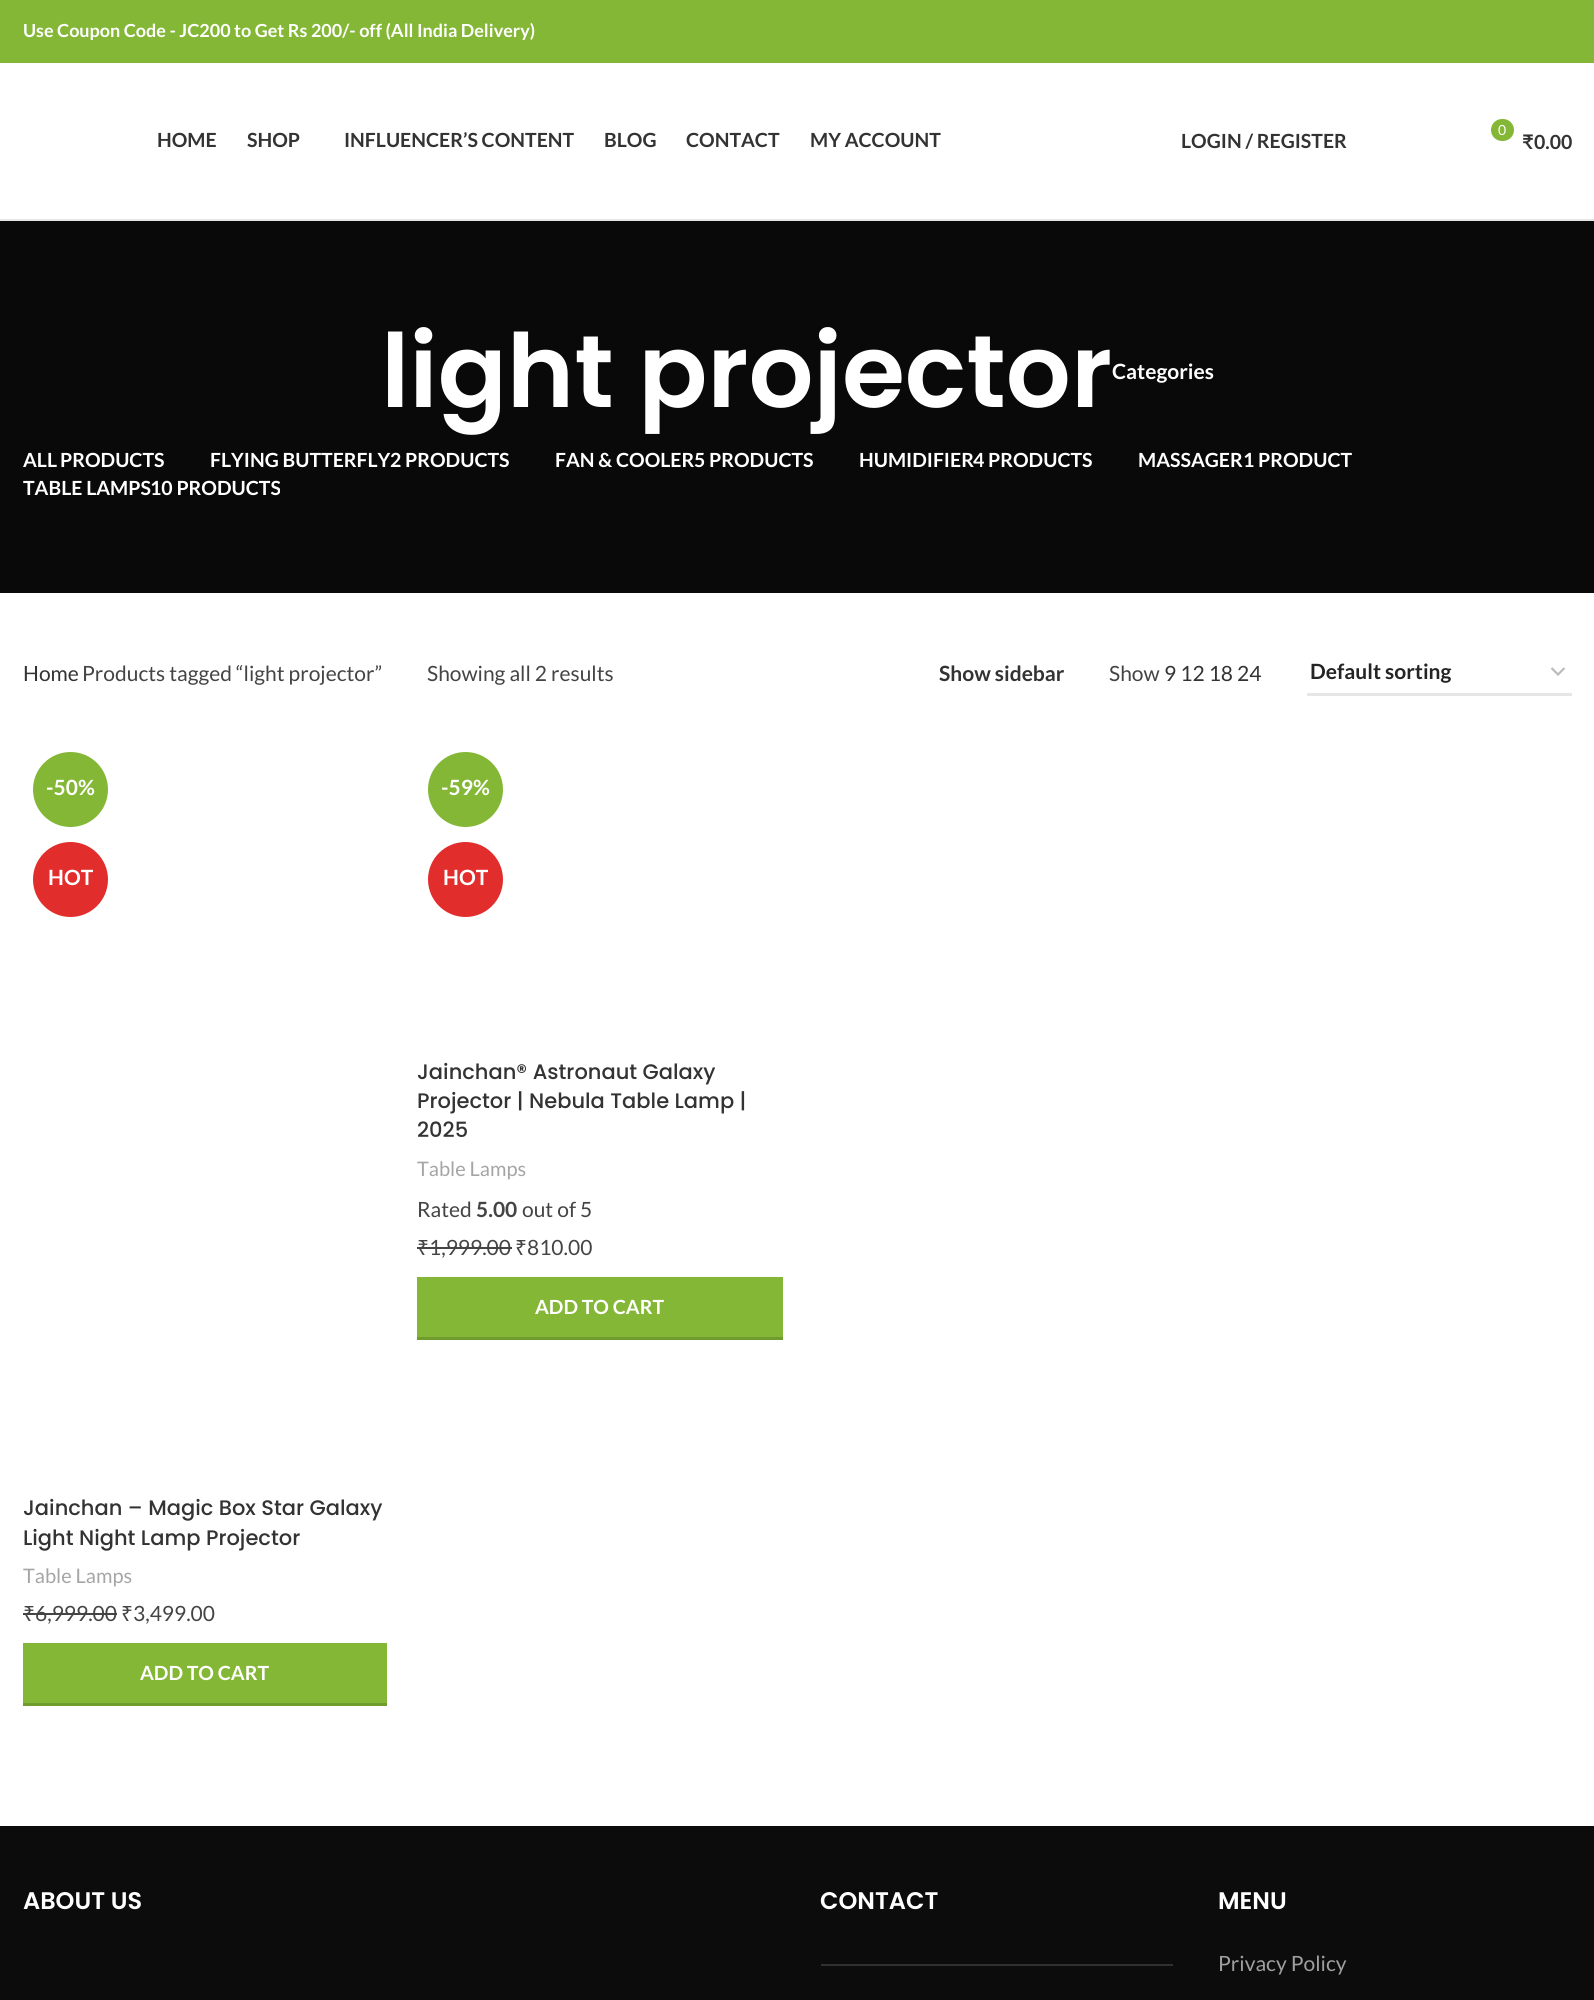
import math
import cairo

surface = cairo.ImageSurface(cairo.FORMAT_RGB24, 1594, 2000)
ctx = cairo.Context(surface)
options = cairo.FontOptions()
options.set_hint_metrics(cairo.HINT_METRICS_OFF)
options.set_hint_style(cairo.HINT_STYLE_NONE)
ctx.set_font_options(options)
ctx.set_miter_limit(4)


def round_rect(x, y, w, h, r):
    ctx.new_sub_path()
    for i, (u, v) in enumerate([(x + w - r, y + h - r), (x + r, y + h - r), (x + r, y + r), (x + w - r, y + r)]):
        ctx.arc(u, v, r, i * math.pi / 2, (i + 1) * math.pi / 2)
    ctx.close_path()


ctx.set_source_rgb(1, 1, 1)
ctx.paint()
ctx.set_source_rgb(0.514, 0.718, 0.208)
ctx.rectangle(0, 0, 1594, 63)
ctx.fill()
ctx.select_font_face("Lato", cairo.FONT_SLANT_NORMAL, cairo.FONT_WEIGHT_BOLD)
ctx.set_font_size(18)
ctx.set_source_rgb(1, 1, 1)
ctx.move_to(23, 37)
ctx.show_text("Use Coupon Code - JC200 to Get Rs 200/- off (All India Delivery)")
ctx.set_source_rgb(0.902, 0.902, 0.902)
ctx.rectangle(0, 219, 1594, 2)
ctx.fill()
ctx.set_font_size(19.5)
ctx.set_source_rgb(0.2, 0.2, 0.2)
ctx.move_to(157, 147)
ctx.show_text("HOME")
ctx.move_to(247, 147)
ctx.show_text("SHOP")
ctx.move_to(344, 147)
ctx.show_text("INFLUENCER’S CONTENT")
ctx.move_to(604, 147)
ctx.show_text("BLOG")
ctx.move_to(686, 147)
ctx.show_text("CONTACT")
ctx.move_to(810, 147)
ctx.show_text("MY ACCOUNT")
ctx.move_to(1181, 148)
ctx.show_text("LOGIN / REGISTER")
ctx.set_source_rgb(0.514, 0.718, 0.208)
round_rect(1491, 119, 23, 22, 11)
ctx.fill()
ctx.select_font_face("Lato")
ctx.set_font_size(14)
ctx.set_source_rgb(1, 1, 1)
ctx.move_to(1498, 135)
ctx.show_text("0")
ctx.select_font_face("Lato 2", cairo.FONT_SLANT_NORMAL, cairo.FONT_WEIGHT_BOLD)
ctx.set_font_size(19.5)
ctx.set_source_rgb(0.2, 0.2, 0.2)
ctx.move_to(1522, 149)
ctx.show_text("₹")
ctx.select_font_face("Lato", cairo.FONT_SLANT_NORMAL, cairo.FONT_WEIGHT_BOLD)
ctx.move_to(1534, 149)
ctx.show_text("0.00")
ctx.set_source_rgb(0.039, 0.039, 0.039)
ctx.rectangle(0, 221, 1594, 372)
ctx.fill()
ctx.select_font_face("Poppins SemiBold")
ctx.set_font_size(102)
ctx.set_source_rgb(1, 1, 1)
ctx.move_to(381, 407)
ctx.show_text("light projector")
ctx.select_font_face("Lato", cairo.FONT_SLANT_NORMAL, cairo.FONT_WEIGHT_BOLD)
ctx.set_font_size(21)
ctx.move_to(1112, 379)
ctx.show_text("Categories")
ctx.set_font_size(19.5)
ctx.move_to(23, 467)
ctx.show_text("ALL")
ctx.move_to(60, 467)
ctx.show_text("PRODUCTS")
ctx.move_to(390, 467)
ctx.show_text("2 PRODUCTS")
ctx.move_to(210, 467)
ctx.show_text("FLYING BUTTERFLY")
ctx.move_to(555, 467)
ctx.show_text("FAN & COOLER")
ctx.move_to(694, 467)
ctx.show_text("5 PRODUCTS")
ctx.move_to(973, 467)
ctx.show_text("4 PRODUCTS")
ctx.move_to(859, 467)
ctx.show_text("HUMIDIFIER")
ctx.move_to(1138, 467)
ctx.show_text("MASSAGER")
ctx.move_to(1243, 467)
ctx.show_text("1 PRODUCT")
ctx.move_to(23, 495)
ctx.show_text("TABLE LAMPS")
ctx.move_to(150, 495)
ctx.show_text("10 PRODUCTS")
ctx.select_font_face("Lato")
ctx.set_font_size(21)
ctx.set_source_rgb(0.2, 0.2, 0.2)
ctx.move_to(23, 681)
ctx.show_text("Home")
ctx.set_source_rgb(0.267, 0.267, 0.267)
ctx.move_to(82, 681)
ctx.show_text("Products tagged “light projector”")
ctx.move_to(427, 681)
ctx.show_text("Showing all 2 results")
ctx.select_font_face("Lato", cairo.FONT_SLANT_NORMAL, cairo.FONT_WEIGHT_BOLD)
ctx.set_source_rgb(0.2, 0.2, 0.2)
ctx.move_to(939, 681)
ctx.show_text("Show sidebar")
ctx.select_font_face("Lato")
ctx.set_source_rgb(0.267, 0.267, 0.267)
ctx.move_to(1109, 681)
ctx.show_text("Show")
ctx.set_source_rgb(0.2, 0.2, 0.2)
ctx.move_to(1164, 681)
ctx.show_text("9 12 18 24")
ctx.new_path()
ctx.move_to(1551.5, 668)
ctx.line_to(1558, 674.5)
ctx.line_to(1564.5, 668)
ctx.set_source_rgb(0.733, 0.733, 0.733)
ctx.set_line_width(2.2)
ctx.stroke()
ctx.set_source_rgb(0.902, 0.902, 0.902)
ctx.rectangle(1307, 693, 265, 3)
ctx.fill()
ctx.select_font_face("Lato", cairo.FONT_SLANT_NORMAL, cairo.FONT_WEIGHT_BOLD)
ctx.set_source_rgb(0.141, 0.141, 0.141)
ctx.move_to(1310, 679)
ctx.show_text("Default sorting")
ctx.set_source_rgb(0.514, 0.718, 0.208)
ctx.new_path()
ctx.arc(70.5, 789.5, 37.5, 0, 2 * math.pi)
ctx.fill()
ctx.set_source_rgb(1, 1, 1)
ctx.move_to(46, 795)
ctx.show_text("-50%")
ctx.set_source_rgb(0.886, 0.176, 0.176)
ctx.new_path()
ctx.arc(70.5, 879.5, 37.5, 0, 2 * math.pi)
ctx.fill()
ctx.set_source_rgb(1, 1, 1)
ctx.move_to(48, 885)
ctx.show_text("HOT")
ctx.select_font_face("Poppins Medium")
ctx.set_source_rgb(0.2, 0.2, 0.2)
ctx.move_to(23, 1515)
ctx.show_text("Jainchan – Magic Box Star Galaxy")
ctx.move_to(23, 1545)
ctx.show_text("Light Night Lamp Projector")
ctx.select_font_face("Lato")
ctx.set_font_size(20)
ctx.set_source_rgb(0.647, 0.647, 0.647)
ctx.move_to(23, 1583)
ctx.show_text("Table Lamps")
ctx.select_font_face("Noto Sans")
ctx.set_font_size(21)
ctx.set_source_rgb(0.267, 0.267, 0.267)
ctx.move_to(23, 1621)
ctx.show_text("₹")
ctx.rectangle(23, 1613, 12, 2)
ctx.fill()
ctx.select_font_face("Lato")
ctx.move_to(35, 1621)
ctx.show_text("6,999.00")
ctx.rectangle(35, 1613, 82, 2)
ctx.fill()
ctx.select_font_face("Noto Sans")
ctx.move_to(121, 1621)
ctx.show_text("₹")
ctx.select_font_face("Lato")
ctx.move_to(133, 1621)
ctx.show_text("3,499.00")
ctx.set_source_rgb(0.514, 0.718, 0.208)
ctx.rectangle(23, 1643, 364, 60)
ctx.fill()
ctx.set_source_rgb(0.435, 0.612, 0.176)
ctx.rectangle(23, 1703, 364, 3)
ctx.fill()
ctx.select_font_face("Lato", cairo.FONT_SLANT_NORMAL, cairo.FONT_WEIGHT_BOLD)
ctx.set_font_size(19.5)
ctx.set_source_rgb(1, 1, 1)
ctx.move_to(140, 1680)
ctx.show_text("ADD TO CART")
ctx.set_source_rgb(0.514, 0.718, 0.208)
ctx.new_path()
ctx.arc(465.5, 789.5, 37.5, 0, 2 * math.pi)
ctx.fill()
ctx.set_font_size(21)
ctx.set_source_rgb(1, 1, 1)
ctx.move_to(441, 795)
ctx.show_text("-59%")
ctx.set_source_rgb(0.886, 0.176, 0.176)
ctx.new_path()
ctx.arc(465.5, 879.5, 37.5, 0, 2 * math.pi)
ctx.fill()
ctx.set_source_rgb(1, 1, 1)
ctx.move_to(443, 885)
ctx.show_text("HOT")
ctx.select_font_face("Poppins Medium")
ctx.set_source_rgb(0.2, 0.2, 0.2)
ctx.move_to(417, 1079)
ctx.show_text("Jainchan® Astronaut Galaxy")
ctx.move_to(417, 1108)
ctx.show_text("Projector | Nebula Table Lamp |")
ctx.move_to(417, 1137)
ctx.show_text("2025")
ctx.select_font_face("Lato")
ctx.set_font_size(20)
ctx.set_source_rgb(0.647, 0.647, 0.647)
ctx.move_to(417, 1176)
ctx.show_text("Table Lamps")
ctx.set_font_size(21)
ctx.set_source_rgb(0.267, 0.267, 0.267)
ctx.move_to(417, 1217)
ctx.show_text("Rated")
ctx.select_font_face("Lato", cairo.FONT_SLANT_NORMAL, cairo.FONT_WEIGHT_BOLD)
ctx.move_to(476, 1217)
ctx.show_text("5.00")
ctx.select_font_face("Lato")
ctx.move_to(522, 1217)
ctx.show_text("out of 5")
ctx.select_font_face("Noto Sans")
ctx.move_to(417, 1255)
ctx.show_text("₹")
ctx.rectangle(417, 1247, 12, 2)
ctx.fill()
ctx.select_font_face("Lato")
ctx.move_to(429, 1255)
ctx.show_text("1,999.00")
ctx.rectangle(429, 1247, 83, 2)
ctx.fill()
ctx.select_font_face("Noto Sans")
ctx.move_to(515, 1255)
ctx.show_text("₹")
ctx.select_font_face("Lato")
ctx.move_to(527, 1255)
ctx.show_text("810.00")
ctx.set_source_rgb(0.514, 0.718, 0.208)
ctx.rectangle(417, 1277, 366, 60)
ctx.fill()
ctx.set_source_rgb(0.435, 0.612, 0.176)
ctx.rectangle(417, 1337, 366, 3)
ctx.fill()
ctx.select_font_face("Lato", cairo.FONT_SLANT_NORMAL, cairo.FONT_WEIGHT_BOLD)
ctx.set_font_size(19.5)
ctx.set_source_rgb(1, 1, 1)
ctx.move_to(535, 1314)
ctx.show_text("ADD TO CART")
ctx.set_source_rgb(0.047, 0.047, 0.047)
ctx.rectangle(0, 1826, 1594, 174)
ctx.fill()
ctx.select_font_face("Poppins SemiBold")
ctx.set_font_size(24)
ctx.set_source_rgb(1, 1, 1)
ctx.move_to(23, 1909)
ctx.show_text("ABOUT US")
ctx.set_source_rgb(0.188, 0.188, 0.188)
ctx.rectangle(821, 1964, 352, 2)
ctx.fill()
ctx.set_source_rgb(1, 1, 1)
ctx.move_to(820, 1909)
ctx.show_text("CONTACT")
ctx.move_to(1218, 1909)
ctx.show_text("MENU")
ctx.select_font_face("Lato")
ctx.set_font_size(21)
ctx.set_source_rgb(0.62, 0.62, 0.62)
ctx.move_to(1218, 1971)
ctx.show_text("Privacy Policy")
surface.write_to_png("page.png")
